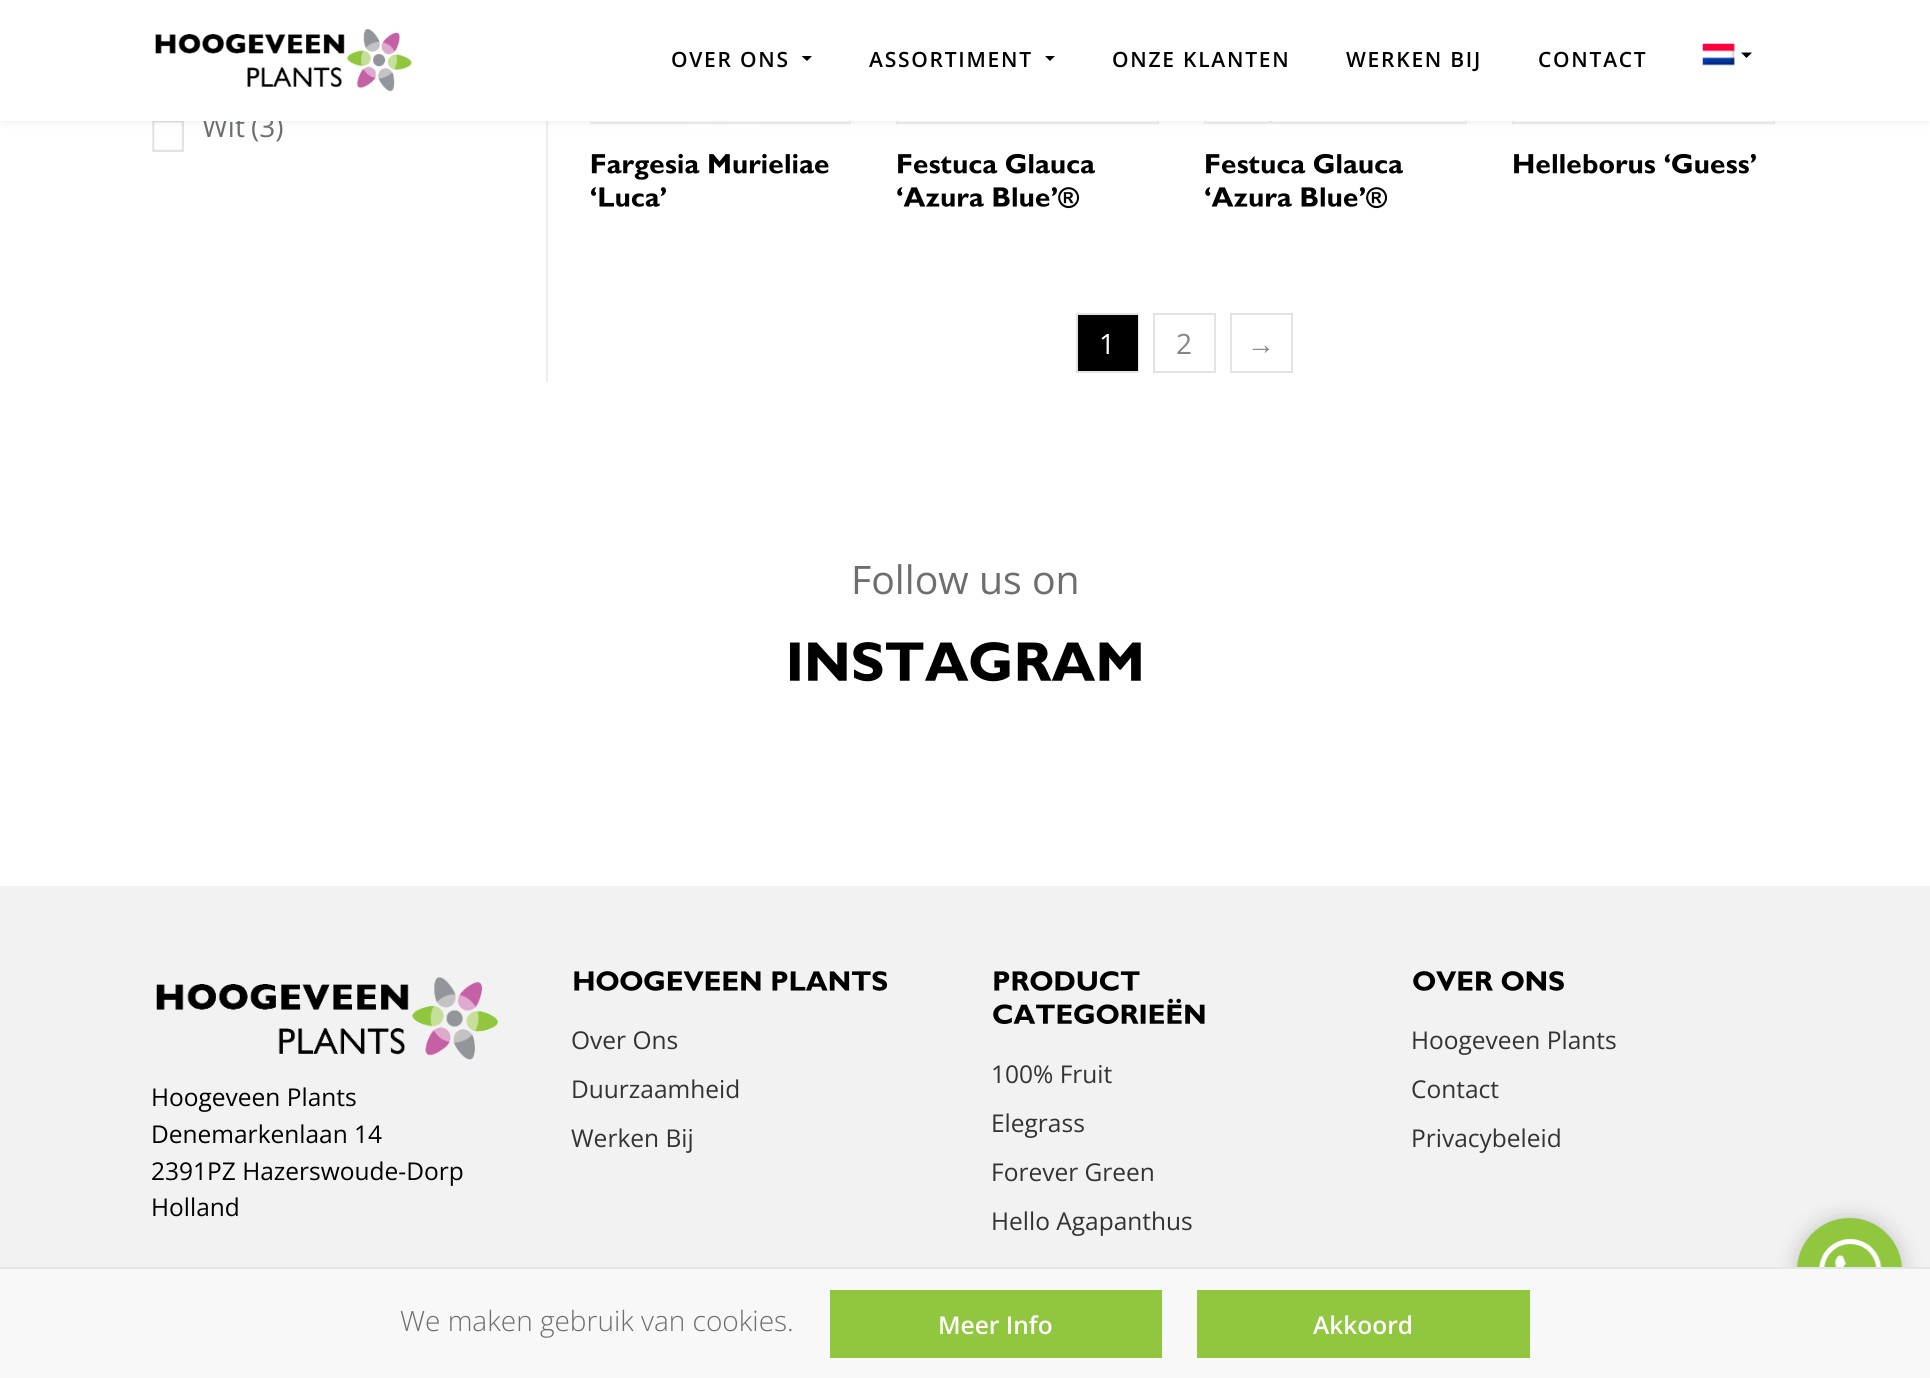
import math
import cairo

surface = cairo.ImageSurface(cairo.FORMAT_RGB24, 1930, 1378)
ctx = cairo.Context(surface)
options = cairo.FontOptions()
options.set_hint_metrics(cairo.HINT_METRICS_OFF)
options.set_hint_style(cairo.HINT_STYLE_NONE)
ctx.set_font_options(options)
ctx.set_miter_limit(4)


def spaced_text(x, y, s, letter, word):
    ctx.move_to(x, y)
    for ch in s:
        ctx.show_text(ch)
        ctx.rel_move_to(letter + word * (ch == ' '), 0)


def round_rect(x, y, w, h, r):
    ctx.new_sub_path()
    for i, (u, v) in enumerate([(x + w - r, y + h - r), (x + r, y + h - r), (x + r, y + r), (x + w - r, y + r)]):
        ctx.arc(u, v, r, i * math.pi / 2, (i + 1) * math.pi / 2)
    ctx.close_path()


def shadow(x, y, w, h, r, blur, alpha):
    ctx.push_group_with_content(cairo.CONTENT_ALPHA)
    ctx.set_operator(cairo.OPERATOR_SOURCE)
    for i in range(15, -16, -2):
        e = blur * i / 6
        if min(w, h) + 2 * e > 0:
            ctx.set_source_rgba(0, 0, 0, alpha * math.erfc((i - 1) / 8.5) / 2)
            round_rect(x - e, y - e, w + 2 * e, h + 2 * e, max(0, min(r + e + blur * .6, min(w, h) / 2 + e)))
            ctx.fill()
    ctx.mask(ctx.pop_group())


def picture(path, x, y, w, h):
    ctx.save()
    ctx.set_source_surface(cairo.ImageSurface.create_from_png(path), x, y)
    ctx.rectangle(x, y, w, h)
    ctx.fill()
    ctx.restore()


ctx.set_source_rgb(1, 1, 1)
ctx.paint()
picture("img3.png", 152, 121, 32, 31)
ctx.set_source_rgb(0.933, 0.933, 0.933)
ctx.rectangle(546, 121, 2, 261)
ctx.fill()
ctx.rectangle(591, -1, 259, 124)
ctx.stroke()
picture("img4.png", 591, 121, 247, 1)
ctx.rectangle(897, -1, 261, 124)
ctx.stroke()
ctx.rectangle(1205, -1, 261, 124)
ctx.stroke()
picture("img9.png", 1205, 121, 260, 1)
ctx.rectangle(1513, -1, 261, 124)
ctx.stroke()
ctx.set_source_rgb(0, 0, 0)
shadow(4, 7, 1923, 114, 0, 4.5, 0.1)
ctx.select_font_face("Open Sans")
ctx.set_font_size(28)
ctx.set_source_rgb(0.427, 0.431, 0.443)
ctx.move_to(202, 137)
ctx.show_text("Wit")
ctx.move_to(251, 137)
ctx.show_text("(3)")
ctx.set_source_rgb(1, 1, 1)
ctx.rectangle(0, 0, 1930, 121)
ctx.fill()
picture("img1.png", 155, 28, 257, 64)
ctx.select_font_face("Open Sans SemiBold")
ctx.set_font_size(21)
ctx.set_source_rgb(0, 0, 0)
spaced_text(671, 67, "OVER ONS", 1.75, 0)
ctx.new_path()
ctx.move_to(801.5, 56)
ctx.line_to(812, 56)
ctx.line_to(807, 61)
ctx.close_path()
ctx.fill()
spaced_text(869, 67, "ASSORTIMENT", 1.75, 0)
ctx.new_path()
ctx.move_to(1045, 56)
ctx.line_to(1055, 56)
ctx.line_to(1050, 61)
ctx.close_path()
ctx.fill()
spaced_text(1112, 67, "ONZE KLANTEN", 1.75, 0)
spaced_text(1346, 67, "WERKEN BIJ", 1.75, 0)
spaced_text(1538, 67, "CONTACT", 1.75, 0)
picture("img2.png", 1702, 43, 33, 23)
ctx.new_path()
ctx.move_to(1741, 52.5)
ctx.line_to(1752, 52.5)
ctx.line_to(1746.5, 58)
ctx.close_path()
ctx.fill()
picture("img5.png", 591, 153, 238, 27)
picture("img6.png", 591, 187, 75, 20)
picture("img7.png", 898, 153, 197, 21)
picture("img8.png", 897, 187, 183, 22)
picture("img7.png", 1206, 153, 197, 21)
picture("img8.png", 1205, 187, 183, 22)
picture("img10.png", 1514, 153, 242, 21)
ctx.rectangle(1077, 314, 61, 58)
ctx.set_source_rgb(0.89, 0.89, 0.89)
ctx.stroke()
ctx.set_source_rgb(0, 0, 0)
ctx.rectangle(1078, 315, 60, 56)
ctx.fill()
ctx.select_font_face("Open Sans")
ctx.set_font_size(28)
ctx.set_source_rgb(1, 1, 1)
ctx.move_to(1099, 354)
ctx.show_text("1")
ctx.rectangle(1154, 314, 61, 58)
ctx.set_source_rgb(0.89, 0.89, 0.89)
ctx.stroke()
ctx.set_source_rgb(0.525, 0.525, 0.525)
ctx.move_to(1176, 354)
ctx.show_text("2")
ctx.rectangle(1231, 314, 61, 58)
ctx.set_source_rgb(0.89, 0.89, 0.89)
ctx.stroke()
ctx.select_font_face("Liberation Sans")
ctx.set_source_rgb(0.525, 0.525, 0.525)
ctx.move_to(1247, 354)
ctx.show_text("→")
ctx.select_font_face("Open Sans")
ctx.set_font_size(39.25)
ctx.set_source_rgb(0.427, 0.431, 0.443)
ctx.move_to(851, 594)
ctx.show_text("Follow us on")
picture("img11.png", 790, 642, 351, 40)
ctx.set_source_rgb(0.949, 0.949, 0.949)
ctx.rectangle(0, 886, 1930, 381)
ctx.fill()
picture("img12.png", 156, 977, 342, 83)
ctx.set_font_size(24.5)
ctx.set_source_rgb(0, 0, 0)
ctx.move_to(151, 1106)
ctx.show_text("Hoogeveen Plants")
ctx.move_to(151, 1143)
ctx.show_text("Denemarkenlaan 14")
ctx.move_to(151, 1180)
ctx.show_text("2391PZ Hazerswoude-Dorp")
ctx.move_to(151, 1216)
ctx.show_text("Holland")
picture("img13.png", 574, 971, 314, 20)
ctx.set_source_rgb(0.2, 0.2, 0.2)
ctx.move_to(571, 1049)
ctx.show_text("Over Ons")
ctx.move_to(571, 1098)
ctx.show_text("Duurzaamheid")
ctx.move_to(571, 1147)
ctx.show_text("Werken Bij")
picture("img14.png", 994, 971, 146, 20)
picture("img15.png", 993, 998, 212, 26)
ctx.move_to(991, 1083)
ctx.show_text("100% Fruit")
ctx.move_to(991, 1132)
ctx.show_text("Elegrass")
ctx.move_to(991, 1181)
ctx.show_text("Forever Green")
ctx.move_to(991, 1230)
ctx.show_text("Hello Agapanthus")
picture("img16.png", 1413, 971, 151, 20)
ctx.move_to(1411, 1049)
ctx.show_text("Hoogeveen Plants")
ctx.move_to(1411, 1098)
ctx.show_text("Contact")
ctx.move_to(1411, 1147)
ctx.show_text("Privacybeleid")
ctx.set_source_rgb(0, 0, 0)
shadow(1797, 1218, 105, 105, 52.5, 10.5, 0.2)
ctx.set_source_rgb(0.569, 0.78, 0.243)
ctx.arc(1849.5, 1270.5, 52.5, 0, 2 * math.pi)
ctx.fill()
ctx.set_source_rgb(0.969, 0.969, 0.969)
ctx.rectangle(0, 1269, 1930, 109)
ctx.fill()
ctx.set_source_rgb(0.898, 0.898, 0.898)
ctx.rectangle(0, 1267, 1930, 2)
ctx.fill()
ctx.select_font_face("Open Sans Light")
ctx.set_font_size(28)
ctx.set_source_rgb(0.427, 0.431, 0.443)
ctx.move_to(400, 1331)
ctx.show_text("We maken gebruik van cookies.")
ctx.set_source_rgb(0.569, 0.78, 0.243)
ctx.rectangle(830, 1290, 332, 68)
ctx.fill()
ctx.select_font_face("Open Sans SemiBold")
ctx.set_font_size(24.5)
ctx.set_source_rgb(1, 1, 1)
ctx.move_to(938, 1334)
ctx.show_text("Meer Info")
ctx.set_source_rgb(0.569, 0.78, 0.243)
ctx.rectangle(1197, 1290, 333, 68)
ctx.fill()
ctx.set_source_rgb(1, 1, 1)
ctx.move_to(1313, 1334)
ctx.show_text("Akkoord")
picture("img17.png", 1819, 1239, 63, 28)
surface.write_to_png("page.png")
